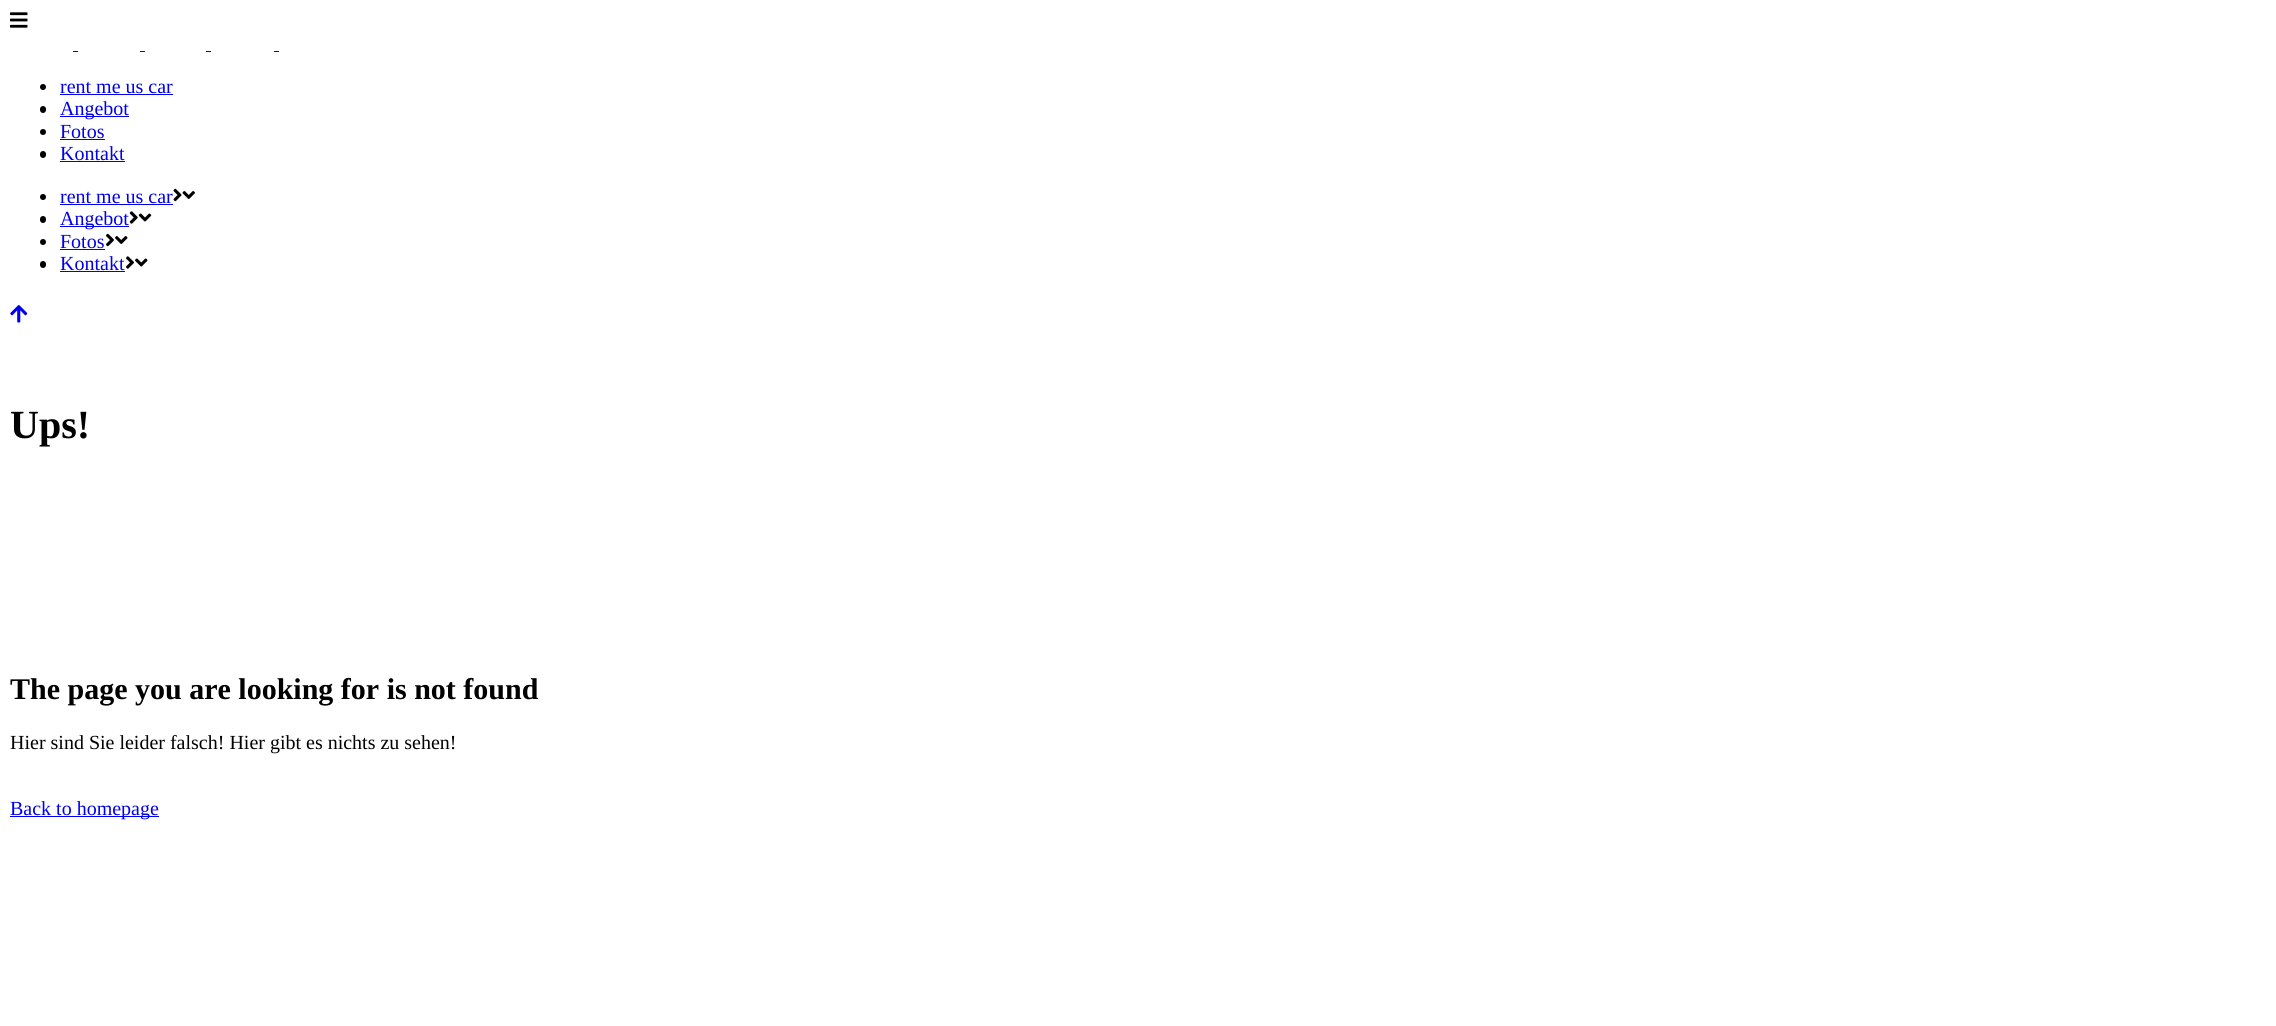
import math
import cairo

surface = cairo.ImageSurface(cairo.FORMAT_RGB24, 2276, 1026)
ctx = cairo.Context(surface)
options = cairo.FontOptions()
options.set_hint_metrics(cairo.HINT_METRICS_OFF)
options.set_hint_style(cairo.HINT_STYLE_NONE)
ctx.set_font_options(options)
ctx.set_miter_limit(4)


def round_rect(x, y, w, h, r):
    ctx.new_sub_path()
    for i, (u, v) in enumerate([(x + w - r, y + h - r), (x + r, y + h - r), (x + r, y + r), (x + w - r, y + r)]):
        ctx.arc(u, v, r, i * math.pi / 2, (i + 1) * math.pi / 2)
    ctx.close_path()


def picture(path, x, y, w, h):
    ctx.save()
    ctx.set_source_surface(cairo.ImageSurface.create_from_png(path), x, y)
    ctx.rectangle(x, y, w, h)
    ctx.fill()
    ctx.restore()


ctx.set_source_rgb(1, 1, 1)
ctx.paint()
picture("img1.png", 10, 12, 18, 16)
ctx.set_source_rgb(0, 0, 0.933)
ctx.rectangle(73, 51, 5, 1)
ctx.fill()
ctx.rectangle(140, 51, 5, 1)
ctx.fill()
ctx.rectangle(206, 51, 5, 1)
ctx.fill()
ctx.rectangle(274, 51, 5, 1)
ctx.fill()
ctx.set_source_rgb(0, 0, 0)
ctx.arc(43, 87, 3, 0, 2 * math.pi)
ctx.fill()
ctx.select_font_face("Liberation Serif")
ctx.set_font_size(20)
ctx.set_source_rgb(0, 0, 0.933)
ctx.move_to(60, 93)
ctx.show_text("rent me us car")
ctx.rectangle(60, 94, 113, 1)
ctx.fill()
ctx.set_source_rgb(0, 0, 0)
round_rect(40, 106, 6, 7, 3)
ctx.fill()
ctx.set_source_rgb(0, 0, 0.933)
ctx.rectangle(60, 116, 69, 1)
ctx.fill()
ctx.move_to(60, 115)
ctx.show_text("Angebot")
ctx.set_source_rgb(0, 0, 0)
ctx.new_path()
ctx.arc(43, 132, 3, 0, 2 * math.pi)
ctx.fill()
ctx.set_source_rgb(0, 0, 0.933)
ctx.move_to(60, 138)
ctx.show_text("Fotos")
ctx.rectangle(60, 139, 45, 1)
ctx.fill()
ctx.set_source_rgb(0, 0, 0)
round_rect(40, 151, 6, 7, 3)
ctx.fill()
ctx.set_source_rgb(0, 0, 0.933)
ctx.move_to(60, 160)
ctx.show_text("Kontakt")
ctx.rectangle(60, 161, 65, 1)
ctx.fill()
ctx.set_source_rgb(0, 0, 0)
ctx.arc(43, 197, 3, 0, 2 * math.pi)
ctx.fill()
ctx.set_source_rgb(0, 0, 0.933)
ctx.move_to(60, 203)
ctx.show_text("rent me us car")
ctx.rectangle(60, 204, 113, 1)
ctx.fill()
picture("img2.png", 173, 188, 9, 14)
picture("img3.png", 182, 191, 13, 8)
ctx.set_source_rgb(0, 0, 0)
round_rect(40, 216, 6, 7, 3)
ctx.fill()
ctx.set_source_rgb(0, 0, 0.933)
ctx.rectangle(60, 226, 69, 1)
ctx.fill()
ctx.move_to(60, 225)
ctx.show_text("Angebot")
picture("img4.png", 129, 211, 9, 13)
picture("img5.png", 138, 213, 14, 9)
ctx.set_source_rgb(0, 0, 0)
ctx.arc(43, 242, 3, 0, 2 * math.pi)
ctx.fill()
ctx.set_source_rgb(0, 0, 0.933)
ctx.move_to(60, 248)
ctx.show_text("Fotos")
ctx.rectangle(60, 249, 45, 1)
ctx.fill()
picture("img6.png", 106, 233, 8, 14)
picture("img7.png", 115, 236, 13, 8)
ctx.set_source_rgb(0, 0, 0)
round_rect(40, 261, 6, 7, 3)
ctx.fill()
ctx.set_source_rgb(0, 0, 0.933)
ctx.move_to(60, 270)
ctx.show_text("Kontakt")
ctx.rectangle(60, 271, 65, 1)
ctx.fill()
picture("img8.png", 126, 256, 8, 13)
picture("img9.png", 135, 258, 13, 9)
picture("img10.png", 10, 305, 18, 18)
ctx.select_font_face("Liberation Serif", cairo.FONT_SLANT_NORMAL, cairo.FONT_WEIGHT_BOLD)
ctx.set_font_size(40)
ctx.set_source_rgb(0, 0, 0)
ctx.move_to(10, 438)
ctx.show_text("Ups!")
ctx.set_font_size(30)
ctx.move_to(10, 699)
ctx.show_text("The page you are looking for is not found")
ctx.select_font_face("Liberation Serif")
ctx.set_font_size(20)
ctx.move_to(10, 749)
ctx.show_text("Hier sind Sie leider falsch! Hier gibt es nichts zu sehen!")
ctx.set_source_rgb(0, 0, 0.933)
ctx.rectangle(10, 816, 149, 1)
ctx.fill()
ctx.move_to(10, 815)
ctx.show_text("Back to homepage")
surface.write_to_png("page.png")
